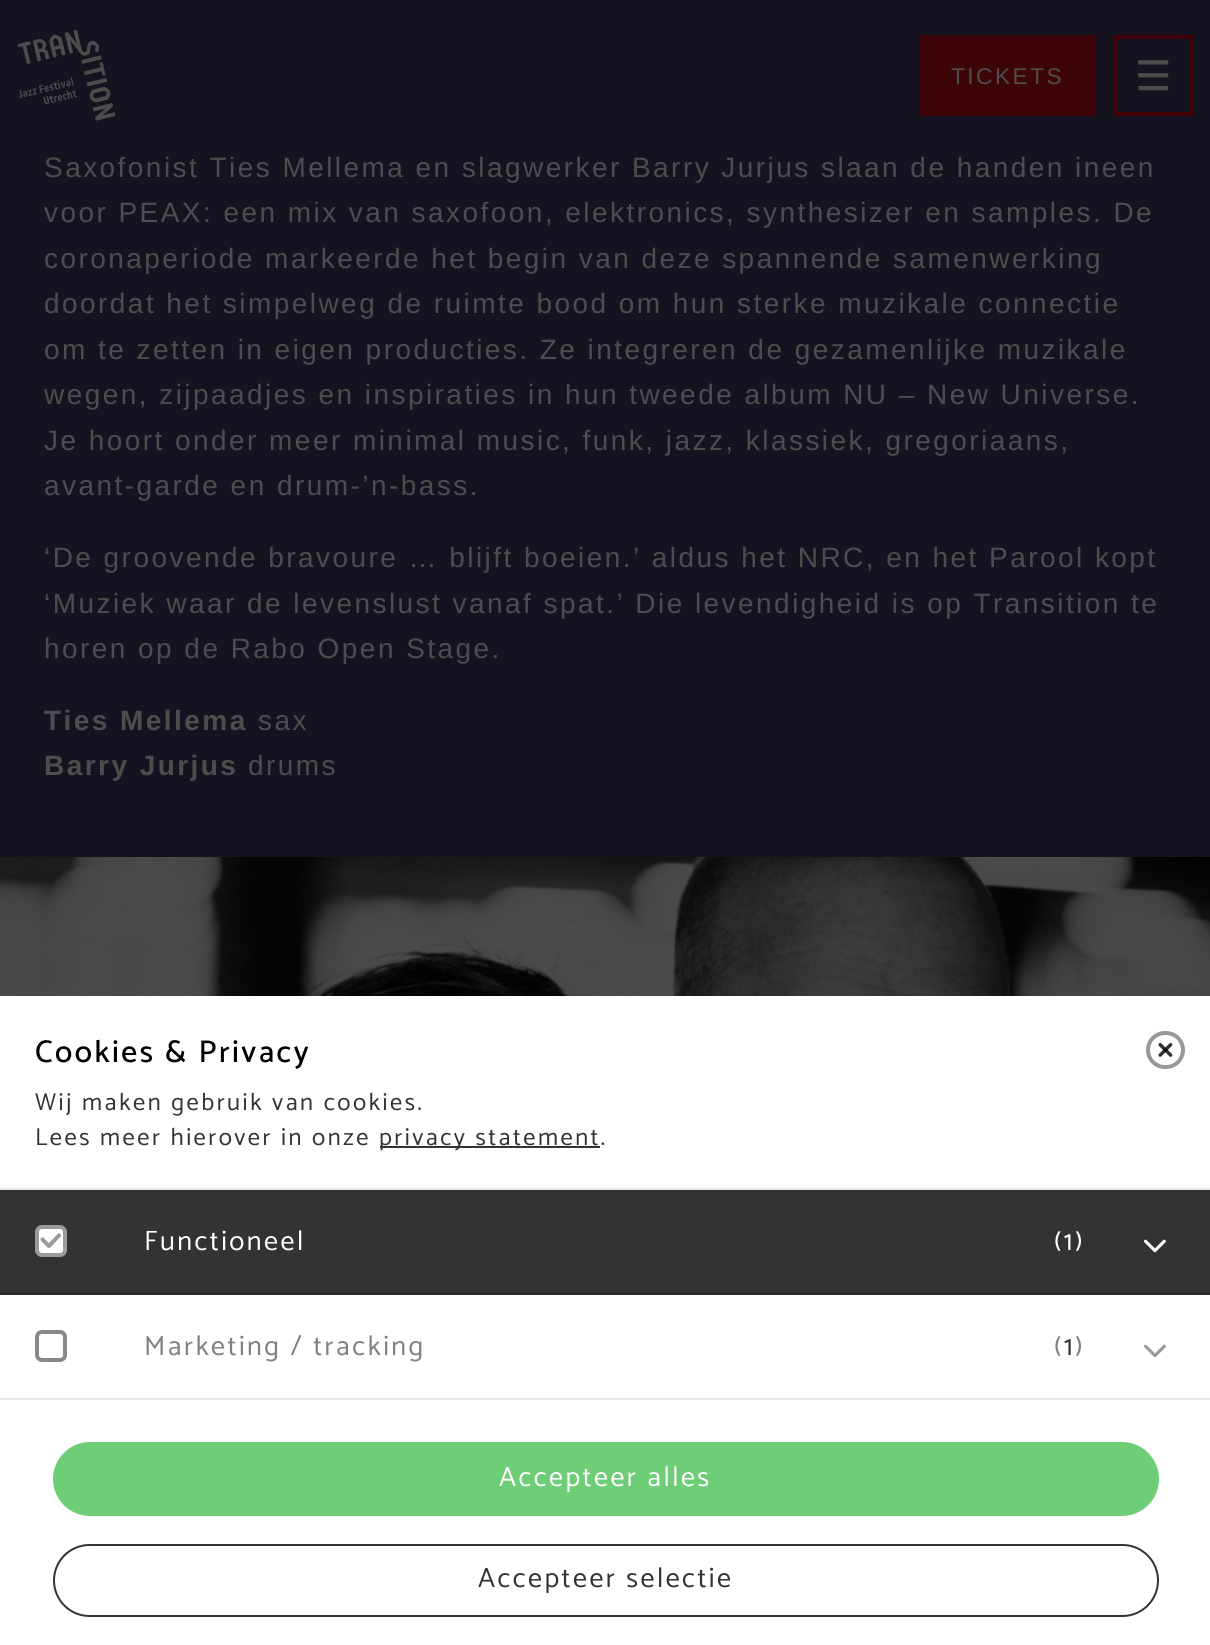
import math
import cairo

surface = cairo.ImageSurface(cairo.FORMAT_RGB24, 1210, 1645)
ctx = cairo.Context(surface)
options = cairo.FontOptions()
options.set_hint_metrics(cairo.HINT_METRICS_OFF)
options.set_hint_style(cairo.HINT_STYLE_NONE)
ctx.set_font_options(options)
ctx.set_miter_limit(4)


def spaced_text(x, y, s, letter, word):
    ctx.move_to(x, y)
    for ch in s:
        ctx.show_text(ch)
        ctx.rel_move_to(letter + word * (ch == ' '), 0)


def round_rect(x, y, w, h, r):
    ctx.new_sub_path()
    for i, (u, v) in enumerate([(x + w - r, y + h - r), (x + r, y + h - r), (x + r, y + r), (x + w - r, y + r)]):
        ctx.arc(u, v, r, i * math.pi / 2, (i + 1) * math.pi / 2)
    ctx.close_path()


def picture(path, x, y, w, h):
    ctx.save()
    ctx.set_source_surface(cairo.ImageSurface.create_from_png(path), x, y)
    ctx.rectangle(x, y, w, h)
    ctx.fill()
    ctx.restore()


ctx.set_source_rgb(0.086, 0.078, 0.125)
ctx.paint()
picture("img1.png", 18, 30, 98, 91)
ctx.set_source_rgb(0.243, 0.02, 0.039)
ctx.rectangle(919, 35, 177, 81)
ctx.fill()
ctx.select_font_face("Liberation Sans")
ctx.set_font_size(22.75)
ctx.set_source_rgb(0.302, 0.302, 0.302)
spaced_text(951, 84, "TICKETS", 2.45, 0)
ctx.rectangle(1115, 37, 77, 77)
ctx.set_source_rgb(0.247, 0, 0.024)
ctx.set_line_width(4)
ctx.stroke()
picture("img2.png", 1138, 60, 31, 31)
ctx.set_font_size(28)
ctx.set_source_rgb(0.302, 0.302, 0.302)
spaced_text(44, 177, "Saxofonist Ties Mellema en slagwerker Barry Jurjus slaan de handen ineen", 2.45, 0)
spaced_text(44, 222, "voor PEAX: een mix van saxofoon, elektronics, synthesizer en samples. De", 2.45, 0)
spaced_text(44, 268, "coronaperiode markeerde het begin van deze spannende samenwerking", 2.45, 0)
spaced_text(44, 313, "doordat het simpelweg de ruimte bood om hun sterke muzikale connectie", 2.45, 0)
spaced_text(44, 359, "om te zetten in eigen producties. Ze integreren de gezamenlijke muzikale", 2.45, 0)
spaced_text(44, 404, "wegen, zijpaadjes en inspiraties in hun tweede album NU – New Universe.", 2.45, 0)
spaced_text(44, 450, "Je hoort onder meer minimal music, funk, jazz, klassiek, gregoriaans,", 2.45, 0)
spaced_text(44, 495, "avant-garde en drum-’n-bass.", 2.45, 0)
spaced_text(44, 567, "‘De groovende bravoure … blijft boeien.’ aldus het NRC, en het Parool kopt", 2.45, 0)
spaced_text(44, 613, "‘Muziek waar de levenslust vanaf spat.’ Die levendigheid is op Transition te", 2.45, 0)
spaced_text(44, 658, "horen op de Rabo Open Stage.", 2.45, 0)
ctx.select_font_face("Liberation Sans", cairo.FONT_SLANT_NORMAL, cairo.FONT_WEIGHT_BOLD)
spaced_text(44, 730, "Ties Mellema", 2.45, 0)
ctx.select_font_face("Liberation Sans")
spaced_text(258, 730, "sax", 2.45, 0)
ctx.select_font_face("Liberation Sans", cairo.FONT_SLANT_NORMAL, cairo.FONT_WEIGHT_BOLD)
spaced_text(44, 775, "Barry Jurjus", 2.45, 0)
ctx.select_font_face("Liberation Sans")
spaced_text(248, 775, "drums", 2.45, 0)
picture("img3.png", 0, 857, 1210, 139)
ctx.set_source_rgb(1, 1, 1)
ctx.rectangle(0, 996, 1210, 649)
ctx.fill()
ctx.set_source_rgb(0.902, 0.902, 0.902)
ctx.rectangle(0, 1188, 1210, 2)
ctx.fill()
ctx.select_font_face("Catamaran Medium")
ctx.set_font_size(31.5)
ctx.set_source_rgb(0, 0, 0)
spaced_text(35, 1062, "Cookies & Privacy", 2.45, 0)
round_rect(1148, 1033, 35, 34, 17)
ctx.set_source_rgb(0.6, 0.6, 0.6)
ctx.stroke()
picture("img4.png", 1158, 1043, 15, 14)
ctx.select_font_face("Catamaran")
ctx.set_font_size(24.5)
ctx.set_source_rgb(0.2, 0.2, 0.2)
spaced_text(35, 1110, "Wij maken gebruik van cookies.", 2.45, 0)
spaced_text(35, 1145, "Lees meer hierover in onze", 2.45, 0)
ctx.rectangle(380, 1146, 220, 2)
ctx.fill()
spaced_text(379, 1145, "privacy statement.", 2.45, 0)
ctx.rectangle(0, 1190, 1210, 103)
ctx.fill()
ctx.set_source_rgb(0.161, 0.161, 0.161)
ctx.rectangle(0, 1293, 1210, 2)
ctx.fill()
ctx.set_source_rgb(1, 1, 1)
round_rect(37, 1227, 28, 28, 5)
ctx.fill_preserve()
ctx.set_source_rgb(0.608, 0.608, 0.608)
ctx.stroke()
picture("img5.png", 40, 1233, 21, 15)
ctx.set_font_size(28)
ctx.set_source_rgb(1, 1, 1)
spaced_text(144, 1250, "Functioneel", 2.45, 0)
spaced_text(1054, 1250, "(1)", 2.45, 0)
picture("img6.png", 1144, 1239, 22, 14)
ctx.set_source_rgb(0.902, 0.902, 0.902)
ctx.rectangle(0, 1398, 1210, 2)
ctx.fill()
round_rect(37, 1332, 28, 28, 5)
ctx.set_source_rgb(0.533, 0.533, 0.533)
ctx.stroke()
ctx.set_source_rgb(0.502, 0.502, 0.502)
spaced_text(144, 1355, "Marketing / tracking", 2.45, 0)
spaced_text(1054, 1355, "(", 2.45, 0)
ctx.set_source_rgb(0.2, 0.2, 0.2)
spaced_text(1064, 1355, "1", 2.45, 0)
ctx.set_source_rgb(0.502, 0.502, 0.502)
spaced_text(1075, 1355, ")", 2.45, 0)
picture("img7.png", 1144, 1344, 22, 14)
ctx.set_source_rgb(0.431, 0.808, 0.471)
round_rect(54, 1443, 1104, 72, 36)
ctx.fill_preserve()
ctx.set_line_width(2)
ctx.stroke()
ctx.set_source_rgb(1, 1, 1)
spaced_text(499, 1486, "Accepteer alles", 2.45, 0)
round_rect(54, 1545, 1104, 71, 35.5)
ctx.set_source_rgb(0.2, 0.2, 0.2)
ctx.stroke()
spaced_text(478, 1587, "Accepteer selectie", 2.45, 0)
surface.write_to_png("page.png")
